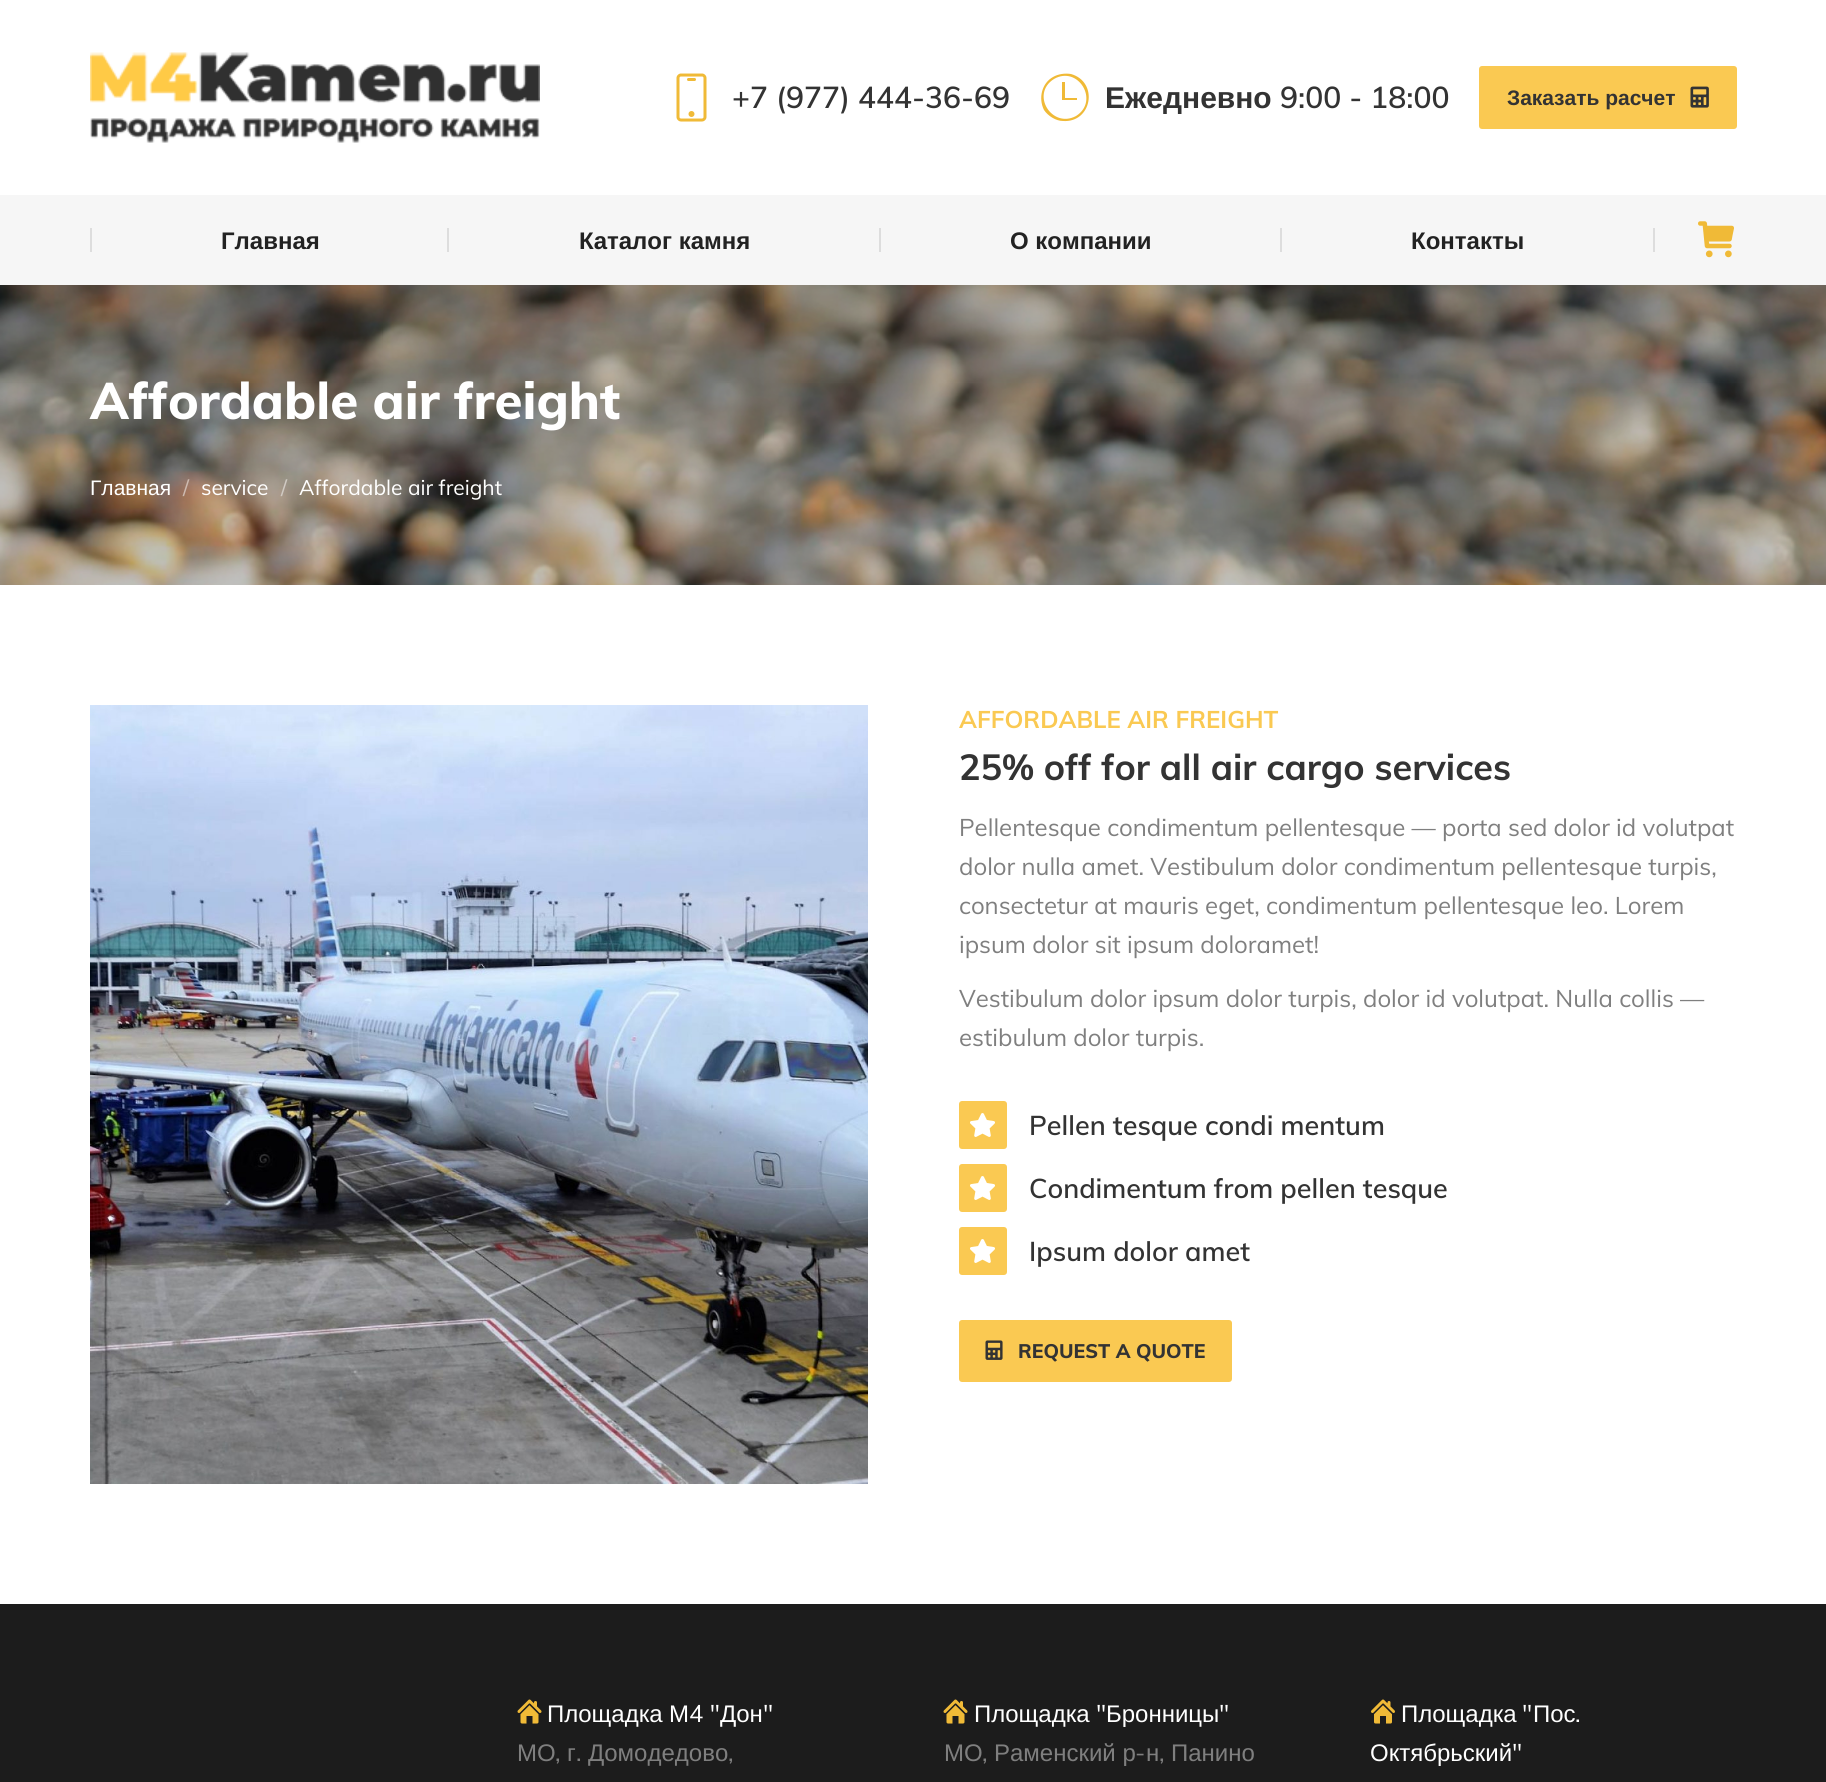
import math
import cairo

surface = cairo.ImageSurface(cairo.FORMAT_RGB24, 1826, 1782)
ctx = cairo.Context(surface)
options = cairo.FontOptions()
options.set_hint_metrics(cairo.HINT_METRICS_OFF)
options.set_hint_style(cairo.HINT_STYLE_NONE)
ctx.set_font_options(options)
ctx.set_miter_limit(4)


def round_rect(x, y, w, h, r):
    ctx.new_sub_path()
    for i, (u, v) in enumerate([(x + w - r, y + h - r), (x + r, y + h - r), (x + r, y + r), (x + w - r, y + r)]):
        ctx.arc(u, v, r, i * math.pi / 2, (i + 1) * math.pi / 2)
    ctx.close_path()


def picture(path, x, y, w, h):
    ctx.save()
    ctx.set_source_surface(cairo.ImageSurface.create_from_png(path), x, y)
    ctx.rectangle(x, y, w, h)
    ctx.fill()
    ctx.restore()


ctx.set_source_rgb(1, 1, 1)
ctx.paint()
picture("img1.png", 90, 52, 450, 91)
picture("img2.png", 676, 73, 31, 49)
ctx.select_font_face("Muli SemiBold")
ctx.set_font_size(30)
ctx.set_source_rgb(0.2, 0.2, 0.2)
ctx.move_to(732, 108)
ctx.show_text("+7 (977) 444-36-69")
ctx.set_source_rgb(0.941, 0.729, 0.216)
ctx.new_path()
ctx.move_to(1053, 77)
ctx.curve_to(1042, 83, 1038, 98, 1044, 110)
ctx.curve_to(1048, 116, 1056, 121, 1063, 121)
ctx.curve_to(1092, 123, 1099, 82, 1071, 74)
ctx.curve_to(1065, 73, 1058, 74, 1053, 77)
ctx.close_path()
ctx.move_to(1076, 116)
ctx.curve_to(1052, 129, 1030, 94, 1054, 79)
ctx.curve_to(1078, 65, 1100, 101, 1076, 116)
ctx.close_path()
ctx.move_to(1065, 98)
ctx.line_to(1065, 82)
ctx.line_to(1062, 82)
ctx.line_to(1062, 100)
ctx.line_to(1077, 100)
ctx.line_to(1077, 98)
ctx.close_path()
ctx.fill()
ctx.select_font_face("Liberation Sans", cairo.FONT_SLANT_NORMAL, cairo.FONT_WEIGHT_BOLD)
ctx.set_source_rgb(0.2, 0.2, 0.2)
ctx.move_to(1105, 108)
ctx.show_text("Ежедневно")
ctx.select_font_face("Muli SemiBold")
ctx.move_to(1280, 108)
ctx.show_text("9:00 - 18:00")
ctx.set_source_rgb(0.98, 0.788, 0.322)
round_rect(1479, 66, 258, 63, 3)
ctx.fill()
ctx.select_font_face("Liberation Sans", cairo.FONT_SLANT_NORMAL, cairo.FONT_WEIGHT_BOLD)
ctx.set_font_size(21)
ctx.set_source_rgb(0.2, 0.2, 0.2)
ctx.move_to(1507, 105)
ctx.show_text("Заказать расчет")
picture("img3.png", 1690, 86, 19, 22)
ctx.set_source_rgb(0.961, 0.961, 0.961)
ctx.rectangle(0, 195, 1826, 90)
ctx.fill()
ctx.set_source_rgb(0.867, 0.867, 0.867)
ctx.rectangle(90, 228, 2, 24)
ctx.fill()
ctx.set_font_size(24)
ctx.set_source_rgb(0.133, 0.133, 0.133)
ctx.move_to(221, 249)
ctx.show_text("Главная")
ctx.set_source_rgb(0.867, 0.867, 0.867)
ctx.rectangle(447, 228, 2, 24)
ctx.fill()
ctx.set_source_rgb(0.133, 0.133, 0.133)
ctx.move_to(579, 249)
ctx.show_text("Каталог камня")
ctx.set_source_rgb(0.867, 0.867, 0.867)
ctx.rectangle(879, 228, 2, 24)
ctx.fill()
ctx.set_source_rgb(0.133, 0.133, 0.133)
ctx.move_to(1010, 249)
ctx.show_text("О компании")
ctx.set_source_rgb(0.867, 0.867, 0.867)
ctx.rectangle(1280, 228, 2, 24)
ctx.fill()
ctx.set_source_rgb(0.133, 0.133, 0.133)
ctx.move_to(1411, 249)
ctx.show_text("Контакты")
ctx.set_source_rgb(0.867, 0.867, 0.867)
ctx.rectangle(1653, 228, 2, 24)
ctx.fill()
picture("img4.png", 1698, 221, 36, 37)
picture("img5.png", 0, 285, 1826, 300)
ctx.select_font_face("Muli ExtraBold")
ctx.set_font_size(51)
ctx.set_source_rgb(1, 1, 1)
ctx.move_to(90, 419)
ctx.show_text("Affordable air freight")
ctx.select_font_face("Liberation Sans")
ctx.set_font_size(21)
ctx.move_to(90, 495)
ctx.show_text("Главная")
ctx.select_font_face("Muli")
ctx.set_source_rgb(0.804, 0.729, 0.69)
ctx.move_to(183, 495)
ctx.show_text("/")
ctx.set_source_rgb(1, 1, 1)
ctx.move_to(201, 495)
ctx.show_text("service")
ctx.set_source_rgb(0.816, 0.792, 0.765)
ctx.move_to(281, 495)
ctx.show_text("/")
ctx.set_source_rgb(1, 1, 1)
ctx.move_to(299, 495)
ctx.show_text("Affordable air freight")
picture("img6.png", 90, 705, 778, 779)
ctx.select_font_face("Muli", cairo.FONT_SLANT_NORMAL, cairo.FONT_WEIGHT_BOLD)
ctx.set_font_size(24)
ctx.set_source_rgb(0.98, 0.788, 0.322)
ctx.move_to(959, 728)
ctx.show_text("AFFORDABLE AIR FREIGHT")
ctx.set_font_size(36)
ctx.set_source_rgb(0.2, 0.2, 0.2)
ctx.move_to(959, 780)
ctx.show_text("25% off for all air cargo services")
ctx.select_font_face("Muli")
ctx.set_font_size(24)
ctx.set_source_rgb(0.498, 0.498, 0.498)
ctx.move_to(959, 836)
ctx.show_text("Pellentesque condimentum pellentesque — porta sed dolor id volutpat")
ctx.move_to(959, 875)
ctx.show_text("dolor nulla amet. Vestibulum dolor condimentum pellentesque turpis,")
ctx.move_to(959, 914)
ctx.show_text("consectetur at mauris eget, condimentum pellentesque leo. Lorem")
ctx.move_to(959, 953)
ctx.show_text("ipsum dolor sit ipsum doloramet!")
ctx.move_to(959, 1007)
ctx.show_text("Vestibulum dolor ipsum dolor turpis, dolor id volutpat. Nulla collis —")
ctx.move_to(959, 1046)
ctx.show_text("estibulum dolor turpis.")
ctx.set_source_rgb(0.98, 0.788, 0.322)
round_rect(959, 1101, 48, 48, 3)
ctx.fill()
picture("img7.png", 970, 1113, 25, 24)
ctx.select_font_face("Muli SemiBold")
ctx.set_font_size(27)
ctx.set_source_rgb(0.2, 0.2, 0.2)
ctx.move_to(1029, 1135)
ctx.show_text("Pellen tesque condi mentum")
ctx.set_source_rgb(0.98, 0.788, 0.322)
round_rect(959, 1164, 48, 48, 3)
ctx.fill()
picture("img7.png", 970, 1176, 25, 24)
ctx.set_source_rgb(0.2, 0.2, 0.2)
ctx.move_to(1029, 1198)
ctx.show_text("Condimentum from pellen tesque")
ctx.set_source_rgb(0.98, 0.788, 0.322)
round_rect(959, 1227, 48, 48, 3)
ctx.fill()
picture("img7.png", 970, 1239, 25, 24)
ctx.set_source_rgb(0.2, 0.2, 0.2)
ctx.move_to(1029, 1261)
ctx.show_text("Ipsum dolor amet")
ctx.set_source_rgb(0.98, 0.788, 0.322)
round_rect(959, 1320, 273, 62, 3)
ctx.fill()
picture("img8.png", 985, 1340, 18, 20)
ctx.select_font_face("Muli ExtraBold")
ctx.set_font_size(19.5)
ctx.set_source_rgb(0.2, 0.2, 0.2)
ctx.move_to(1018, 1358)
ctx.show_text("REQUEST A QUOTE")
ctx.set_source_rgb(0.11, 0.11, 0.11)
ctx.rectangle(0, 1604, 1826, 178)
ctx.fill()
picture("img9.png", 517, 1699, 25, 25)
ctx.select_font_face("Liberation Sans")
ctx.set_font_size(24)
ctx.set_source_rgb(1, 1, 1)
ctx.move_to(547, 1722)
ctx.show_text("Площадка")
ctx.move_to(669, 1722)
ctx.show_text("М")
ctx.select_font_face("Muli")
ctx.move_to(689, 1722)
ctx.show_text("4 \"")
ctx.select_font_face("Liberation Sans")
ctx.move_to(720, 1722)
ctx.show_text("Дон")
ctx.select_font_face("Muli")
ctx.move_to(763, 1722)
ctx.show_text("\"")
ctx.select_font_face("Liberation Sans")
ctx.set_source_rgb(0.498, 0.498, 0.498)
ctx.move_to(517, 1761)
ctx.show_text("МО")
ctx.select_font_face("Muli")
ctx.move_to(555, 1761)
ctx.show_text(",")
ctx.select_font_face("Liberation Sans")
ctx.move_to(567, 1761)
ctx.show_text("г")
ctx.select_font_face("Muli")
ctx.move_to(576, 1761)
ctx.show_text(".")
ctx.select_font_face("Liberation Sans")
ctx.move_to(588, 1761)
ctx.show_text("Домодедово")
ctx.select_font_face("Muli")
ctx.move_to(728, 1761)
ctx.show_text(",")
picture("img9.png", 943, 1699, 25, 25)
ctx.select_font_face("Liberation Sans")
ctx.set_source_rgb(1, 1, 1)
ctx.move_to(974, 1722)
ctx.show_text("Площадка")
ctx.select_font_face("Muli")
ctx.move_to(1096, 1722)
ctx.show_text("\"")
ctx.select_font_face("Liberation Sans")
ctx.move_to(1106, 1722)
ctx.show_text("Бронницы")
ctx.select_font_face("Muli")
ctx.move_to(1219, 1722)
ctx.show_text("\"")
ctx.select_font_face("Liberation Sans")
ctx.set_source_rgb(0.498, 0.498, 0.498)
ctx.move_to(944, 1761)
ctx.show_text("МО")
ctx.move_to(994, 1761)
ctx.show_text("Раменский р")
ctx.select_font_face("Muli")
ctx.move_to(1135, 1761)
ctx.show_text("-")
ctx.select_font_face("Liberation Sans")
ctx.move_to(1146, 1761)
ctx.show_text("н")
ctx.move_to(1171, 1761)
ctx.show_text("Панино")
ctx.select_font_face("Muli")
ctx.move_to(982, 1761)
ctx.show_text(",")
ctx.move_to(1159, 1761)
ctx.show_text(",")
picture("img10.png", 1371, 1699, 24, 25)
ctx.select_font_face("Liberation Sans")
ctx.set_source_rgb(1, 1, 1)
ctx.move_to(1401, 1722)
ctx.show_text("Площадка")
ctx.select_font_face("Muli")
ctx.move_to(1522, 1722)
ctx.show_text("\"")
ctx.select_font_face("Liberation Sans")
ctx.move_to(1533, 1722)
ctx.show_text("Пос")
ctx.select_font_face("Muli")
ctx.move_to(1575, 1722)
ctx.show_text(".")
ctx.select_font_face("Liberation Sans")
ctx.move_to(1370, 1761)
ctx.show_text("Октябрьский")
ctx.select_font_face("Muli")
ctx.move_to(1512, 1761)
ctx.show_text("\"")
surface.write_to_png("page.png")
